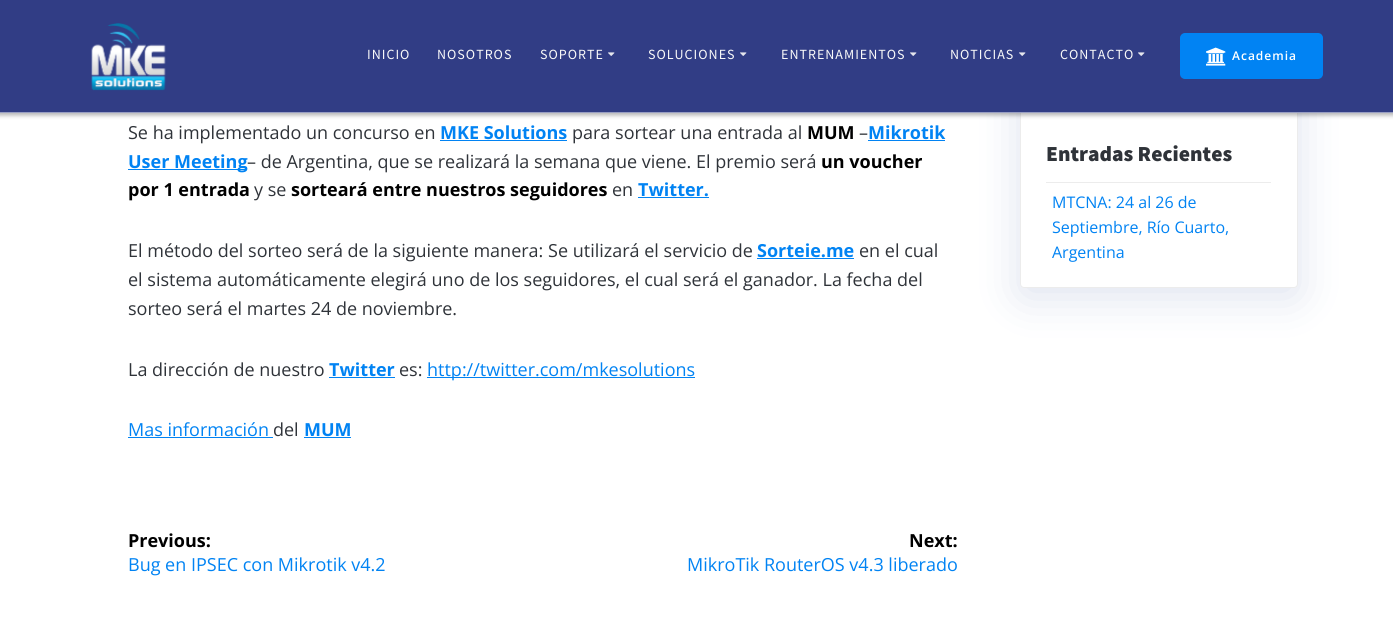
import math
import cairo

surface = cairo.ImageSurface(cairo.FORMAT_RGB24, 1393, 619)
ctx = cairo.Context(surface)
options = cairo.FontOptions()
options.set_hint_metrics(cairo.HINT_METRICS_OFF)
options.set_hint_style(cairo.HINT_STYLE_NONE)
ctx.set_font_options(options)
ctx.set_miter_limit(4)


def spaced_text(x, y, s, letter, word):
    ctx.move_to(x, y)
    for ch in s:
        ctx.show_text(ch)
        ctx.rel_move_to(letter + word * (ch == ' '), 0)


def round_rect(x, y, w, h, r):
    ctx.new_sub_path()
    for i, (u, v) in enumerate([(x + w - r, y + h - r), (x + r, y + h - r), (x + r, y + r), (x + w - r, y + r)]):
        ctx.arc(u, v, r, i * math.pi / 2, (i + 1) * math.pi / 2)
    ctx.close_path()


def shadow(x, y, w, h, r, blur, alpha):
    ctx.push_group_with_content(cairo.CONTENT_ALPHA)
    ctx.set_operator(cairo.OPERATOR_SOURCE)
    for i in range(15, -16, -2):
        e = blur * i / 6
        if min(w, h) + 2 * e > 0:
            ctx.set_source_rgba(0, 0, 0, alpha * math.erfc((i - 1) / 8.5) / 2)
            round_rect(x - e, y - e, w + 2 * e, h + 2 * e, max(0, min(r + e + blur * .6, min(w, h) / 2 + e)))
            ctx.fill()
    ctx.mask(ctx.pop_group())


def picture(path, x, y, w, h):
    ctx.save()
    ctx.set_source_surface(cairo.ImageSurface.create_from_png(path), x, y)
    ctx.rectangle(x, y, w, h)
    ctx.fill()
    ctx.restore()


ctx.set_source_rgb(1, 1, 1)
ctx.paint()
ctx.set_source_rgb(0.137, 0.271, 0.596)
shadow(1020, 14, 278, 283, 4, 22.5, 0.15)
ctx.set_source_rgb(1, 1, 1)
round_rect(1020.5, 5.5, 277, 282, 3.5)
ctx.fill_preserve()
ctx.set_source_rgb(0.925, 0.925, 0.925)
ctx.set_line_width(1)
ctx.stroke()
ctx.set_source_rgb(0, 0, 0)
shadow(-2, -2, 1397, 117, 0, 2.5, 0.33)
ctx.set_source_rgb(0.192, 0.239, 0.522)
ctx.rectangle(0, 0, 1393, 112)
ctx.fill()
ctx.set_source_rgb(0.596, 0.62, 0.761)
ctx.rectangle(0, 112, 1393, 1)
ctx.fill()
picture("img1.png", 91, 23, 75, 68)
ctx.select_font_face("Source Sans Pro")
ctx.set_font_size(14)
ctx.set_source_rgb(0.973, 0.973, 0.973)
spaced_text(367, 59, "INICIO", 1, 0)
spaced_text(437, 59, "NOSOTROS", 1, 0)
spaced_text(540, 59, "SOPORTE", 1, 0)
picture("img2.png", 608, 52, 7, 4)
spaced_text(648, 59, "SOLUCIONES", 1, 0)
picture("img2.png", 740, 52, 7, 4)
spaced_text(781, 59, "ENTRENAMIENTOS", 1, 0)
picture("img2.png", 910, 52, 7, 4)
spaced_text(950, 59, "NOTICIAS", 1, 0)
picture("img2.png", 1019, 52, 7, 4)
spaced_text(1060, 59, "CONTACTO", 1, 0)
picture("img2.png", 1138, 52, 7, 4)
ctx.set_source_rgb(0.004, 0.514, 0.953)
round_rect(1181, 34, 141, 44, 4)
ctx.fill_preserve()
ctx.set_line_width(2)
ctx.stroke()
picture("img3.png", 1206, 47, 20, 19)
ctx.select_font_face("Open Sans SemiBold")
ctx.set_font_size(12)
ctx.set_source_rgb(1, 1, 1)
spaced_text(1232, 60, "Academia", 1, 0)
ctx.select_font_face("Open Sans")
ctx.set_font_size(18)
ctx.set_source_rgb(0.184, 0.2, 0.224)
ctx.move_to(128, 139)
ctx.show_text("Se ha implementado un concurso en")
ctx.select_font_face("Open Sans", cairo.FONT_SLANT_NORMAL, cairo.FONT_WEIGHT_BOLD)
ctx.set_source_rgb(0.004, 0.514, 0.953)
ctx.move_to(440, 139)
ctx.show_text("MKE Solutions")
ctx.rectangle(440, 140, 127, 1)
ctx.fill()
ctx.select_font_face("Open Sans")
ctx.set_source_rgb(0.184, 0.2, 0.224)
ctx.move_to(572, 139)
ctx.show_text("para sortear una entrada al")
ctx.select_font_face("Open Sans", cairo.FONT_SLANT_NORMAL, cairo.FONT_WEIGHT_BOLD)
ctx.set_source_rgb(0, 0, 0)
ctx.move_to(807, 139)
ctx.show_text("MUM")
ctx.select_font_face("Open Sans")
ctx.set_source_rgb(0.184, 0.2, 0.224)
ctx.move_to(859, 139)
ctx.show_text("–")
ctx.select_font_face("Open Sans", cairo.FONT_SLANT_NORMAL, cairo.FONT_WEIGHT_BOLD)
ctx.set_source_rgb(0.004, 0.514, 0.953)
ctx.move_to(868, 139)
ctx.show_text("Mikrotik")
ctx.rectangle(868, 140, 77, 1)
ctx.fill()
ctx.rectangle(128, 169, 119, 1)
ctx.fill()
ctx.move_to(128, 168)
ctx.show_text("User Meeting")
ctx.select_font_face("Open Sans")
ctx.set_source_rgb(0.184, 0.2, 0.224)
ctx.move_to(247, 168)
ctx.show_text("– de Argentina, que se realizará la semana que viene. El premio será")
ctx.select_font_face("Open Sans", cairo.FONT_SLANT_NORMAL, cairo.FONT_WEIGHT_BOLD)
ctx.set_source_rgb(0, 0, 0)
ctx.move_to(821, 168)
ctx.show_text("un voucher")
ctx.move_to(128, 196)
ctx.show_text("por 1 entrada")
ctx.select_font_face("Open Sans")
ctx.set_source_rgb(0.184, 0.2, 0.224)
ctx.move_to(254, 196)
ctx.show_text("y se")
ctx.select_font_face("Open Sans", cairo.FONT_SLANT_NORMAL, cairo.FONT_WEIGHT_BOLD)
ctx.set_source_rgb(0, 0, 0)
ctx.move_to(291, 196)
ctx.show_text("sorteará entre nuestros seguidores")
ctx.select_font_face("Open Sans")
ctx.set_source_rgb(0.184, 0.2, 0.224)
ctx.move_to(612, 196)
ctx.show_text("en")
ctx.select_font_face("Open Sans", cairo.FONT_SLANT_NORMAL, cairo.FONT_WEIGHT_BOLD)
ctx.set_source_rgb(0.004, 0.514, 0.953)
ctx.move_to(638, 196)
ctx.show_text("Twitter.")
ctx.rectangle(638, 197, 71, 1)
ctx.fill()
ctx.select_font_face("Open Sans")
ctx.set_source_rgb(0.184, 0.2, 0.224)
ctx.move_to(128, 257)
ctx.show_text("El método del sorteo será de la siguiente manera: Se utilizará el servicio de")
ctx.select_font_face("Open Sans", cairo.FONT_SLANT_NORMAL, cairo.FONT_WEIGHT_BOLD)
ctx.set_source_rgb(0.004, 0.514, 0.953)
ctx.move_to(757, 257)
ctx.show_text("Sorteie.me")
ctx.rectangle(757, 258, 97, 1)
ctx.fill()
ctx.select_font_face("Open Sans")
ctx.set_source_rgb(0.184, 0.2, 0.224)
ctx.move_to(859, 257)
ctx.show_text("en el cual")
ctx.move_to(128, 286)
ctx.show_text("el sistema automáticamente elegirá uno de los seguidores, el cual será el ganador. La fecha del")
ctx.move_to(128, 315)
ctx.show_text("sorteo será el martes 24 de noviembre.")
ctx.move_to(128, 376)
ctx.show_text("La dirección de nuestro")
ctx.select_font_face("Open Sans", cairo.FONT_SLANT_NORMAL, cairo.FONT_WEIGHT_BOLD)
ctx.set_source_rgb(0.004, 0.514, 0.953)
ctx.move_to(329, 376)
ctx.show_text("Twitter")
ctx.rectangle(329, 377, 66, 1)
ctx.fill()
ctx.select_font_face("Open Sans")
ctx.set_source_rgb(0.184, 0.2, 0.224)
ctx.move_to(399, 376)
ctx.show_text("es:")
ctx.set_source_rgb(0.004, 0.514, 0.953)
ctx.rectangle(427, 377, 268, 1)
ctx.fill()
ctx.move_to(427, 376)
ctx.show_text("http://twitter.com/mkesolutions")
ctx.move_to(128, 436)
ctx.show_text("Mas información")
ctx.rectangle(128, 437, 145, 1)
ctx.fill()
ctx.set_source_rgb(0.184, 0.2, 0.224)
ctx.move_to(273, 436)
ctx.show_text("del")
ctx.select_font_face("Open Sans", cairo.FONT_SLANT_NORMAL, cairo.FONT_WEIGHT_BOLD)
ctx.set_source_rgb(0.004, 0.514, 0.953)
ctx.move_to(304, 436)
ctx.show_text("MUM")
ctx.rectangle(304, 437, 47, 1)
ctx.fill()
ctx.set_source_rgb(0, 0, 0)
ctx.move_to(128, 547)
ctx.show_text("Previous:")
ctx.select_font_face("Open Sans")
ctx.set_source_rgb(0.004, 0.514, 0.953)
ctx.move_to(128, 571)
ctx.show_text("Bug en IPSEC con Mikrotik v4.2")
ctx.select_font_face("Open Sans", cairo.FONT_SLANT_NORMAL, cairo.FONT_WEIGHT_BOLD)
ctx.set_source_rgb(0, 0, 0)
ctx.move_to(909, 547)
ctx.show_text("Next:")
ctx.select_font_face("Open Sans")
ctx.set_source_rgb(0.004, 0.514, 0.953)
ctx.move_to(687, 571)
ctx.show_text("MikroTik RouterOS v4.3 liberado")
ctx.select_font_face("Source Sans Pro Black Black")
ctx.set_font_size(21.5)
ctx.set_source_rgb(0.184, 0.2, 0.224)
ctx.move_to(1046, 161)
ctx.show_text("Entradas Recientes")
ctx.set_source_rgb(0.925, 0.925, 0.925)
ctx.rectangle(1046, 182, 225, 1)
ctx.fill()
ctx.select_font_face("Open Sans")
ctx.set_font_size(16)
ctx.set_source_rgb(0.004, 0.514, 0.953)
ctx.move_to(1052, 208)
ctx.show_text("MTCNA: 24 al 26 de")
ctx.move_to(1052, 233)
ctx.show_text("Septiembre, Río Cuarto,")
ctx.move_to(1052, 258)
ctx.show_text("Argentina")
surface.write_to_png("page.png")
